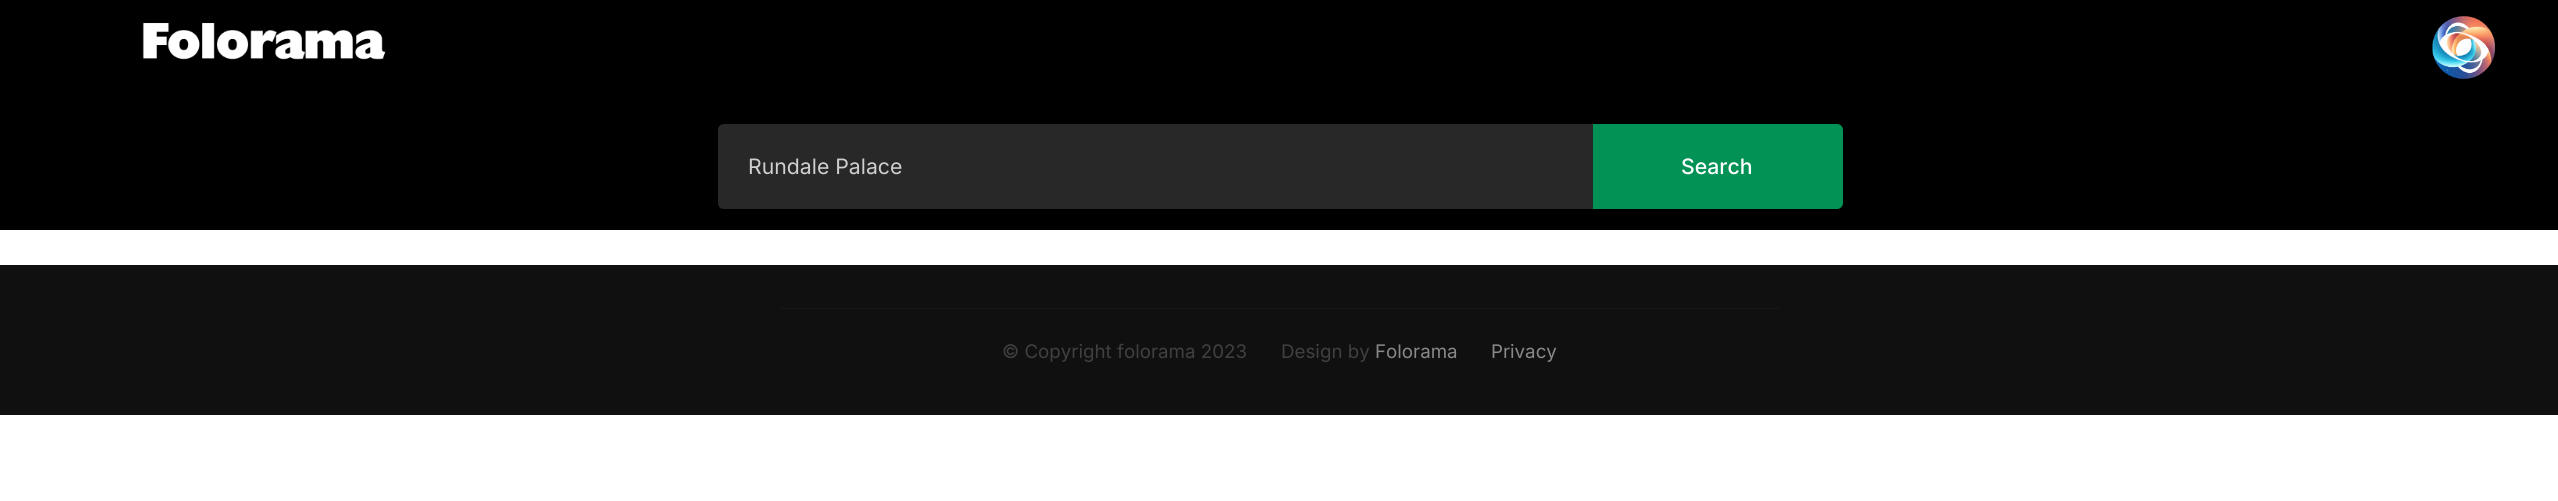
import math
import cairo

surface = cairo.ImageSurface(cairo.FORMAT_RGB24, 2558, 501)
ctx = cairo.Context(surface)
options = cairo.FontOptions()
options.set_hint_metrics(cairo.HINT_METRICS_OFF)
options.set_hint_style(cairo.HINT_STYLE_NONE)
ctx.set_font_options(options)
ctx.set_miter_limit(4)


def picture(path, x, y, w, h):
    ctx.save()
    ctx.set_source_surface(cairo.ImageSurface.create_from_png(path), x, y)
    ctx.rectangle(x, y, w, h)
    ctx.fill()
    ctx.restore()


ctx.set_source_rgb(1, 1, 1)
ctx.paint()
ctx.set_source_rgb(0, 0, 0)
ctx.rectangle(0, 0, 2558, 230)
ctx.fill()
picture("img1.png", 142, 22, 244, 38)
picture("img2.png", 2432, 16, 63, 63)
ctx.set_source_rgb(0.157, 0.157, 0.157)
ctx.new_path()
ctx.move_to(724, 124)
ctx.line_to(1593, 124)
ctx.line_to(1593, 209)
ctx.line_to(724, 209)
ctx.curve_to(720.5, 209, 718, 206.5, 718, 203)
ctx.line_to(718, 130)
ctx.curve_to(718, 126.5, 720.5, 124, 724, 124)
ctx.close_path()
ctx.fill()
ctx.select_font_face("Inter")
ctx.set_font_size(21.25)
ctx.set_source_rgb(0.808, 0.812, 0.812)
ctx.move_to(748, 174)
ctx.show_text("Rundale Palace")
ctx.set_source_rgb(0.008, 0.573, 0.337)
ctx.new_path()
ctx.move_to(1594.5, 125.5)
ctx.line_to(1837, 125.5)
ctx.curve_to(1839.5, 125.5, 1841.5, 127.5, 1841.5, 130)
ctx.line_to(1841.5, 203)
ctx.curve_to(1841.5, 205.5, 1839.5, 207.5, 1837, 207.5)
ctx.line_to(1594.5, 207.5)
ctx.close_path()
ctx.fill_preserve()
ctx.set_line_width(3)
ctx.stroke()
ctx.select_font_face("Inter Medium")
ctx.set_source_rgb(1, 1, 1)
ctx.move_to(1681, 174)
ctx.show_text("Search")
ctx.set_source_rgb(0.063, 0.063, 0.063)
ctx.rectangle(0, 265, 2558, 150)
ctx.fill()
ctx.set_source_rgb(0.09, 0.09, 0.09)
ctx.rectangle(780, 308, 1000, 1)
ctx.fill()
ctx.select_font_face("Inter")
ctx.set_font_size(18.75)
ctx.set_source_rgb(0.251, 0.251, 0.251)
ctx.move_to(1002, 358)
ctx.show_text("© Copyright folorama 2023")
ctx.move_to(1281, 358)
ctx.show_text("Design by")
ctx.set_source_rgb(0.533, 0.533, 0.533)
ctx.move_to(1375, 358)
ctx.show_text("Folorama")
ctx.move_to(1491, 358)
ctx.show_text("Privacy")
surface.write_to_png("page.png")
